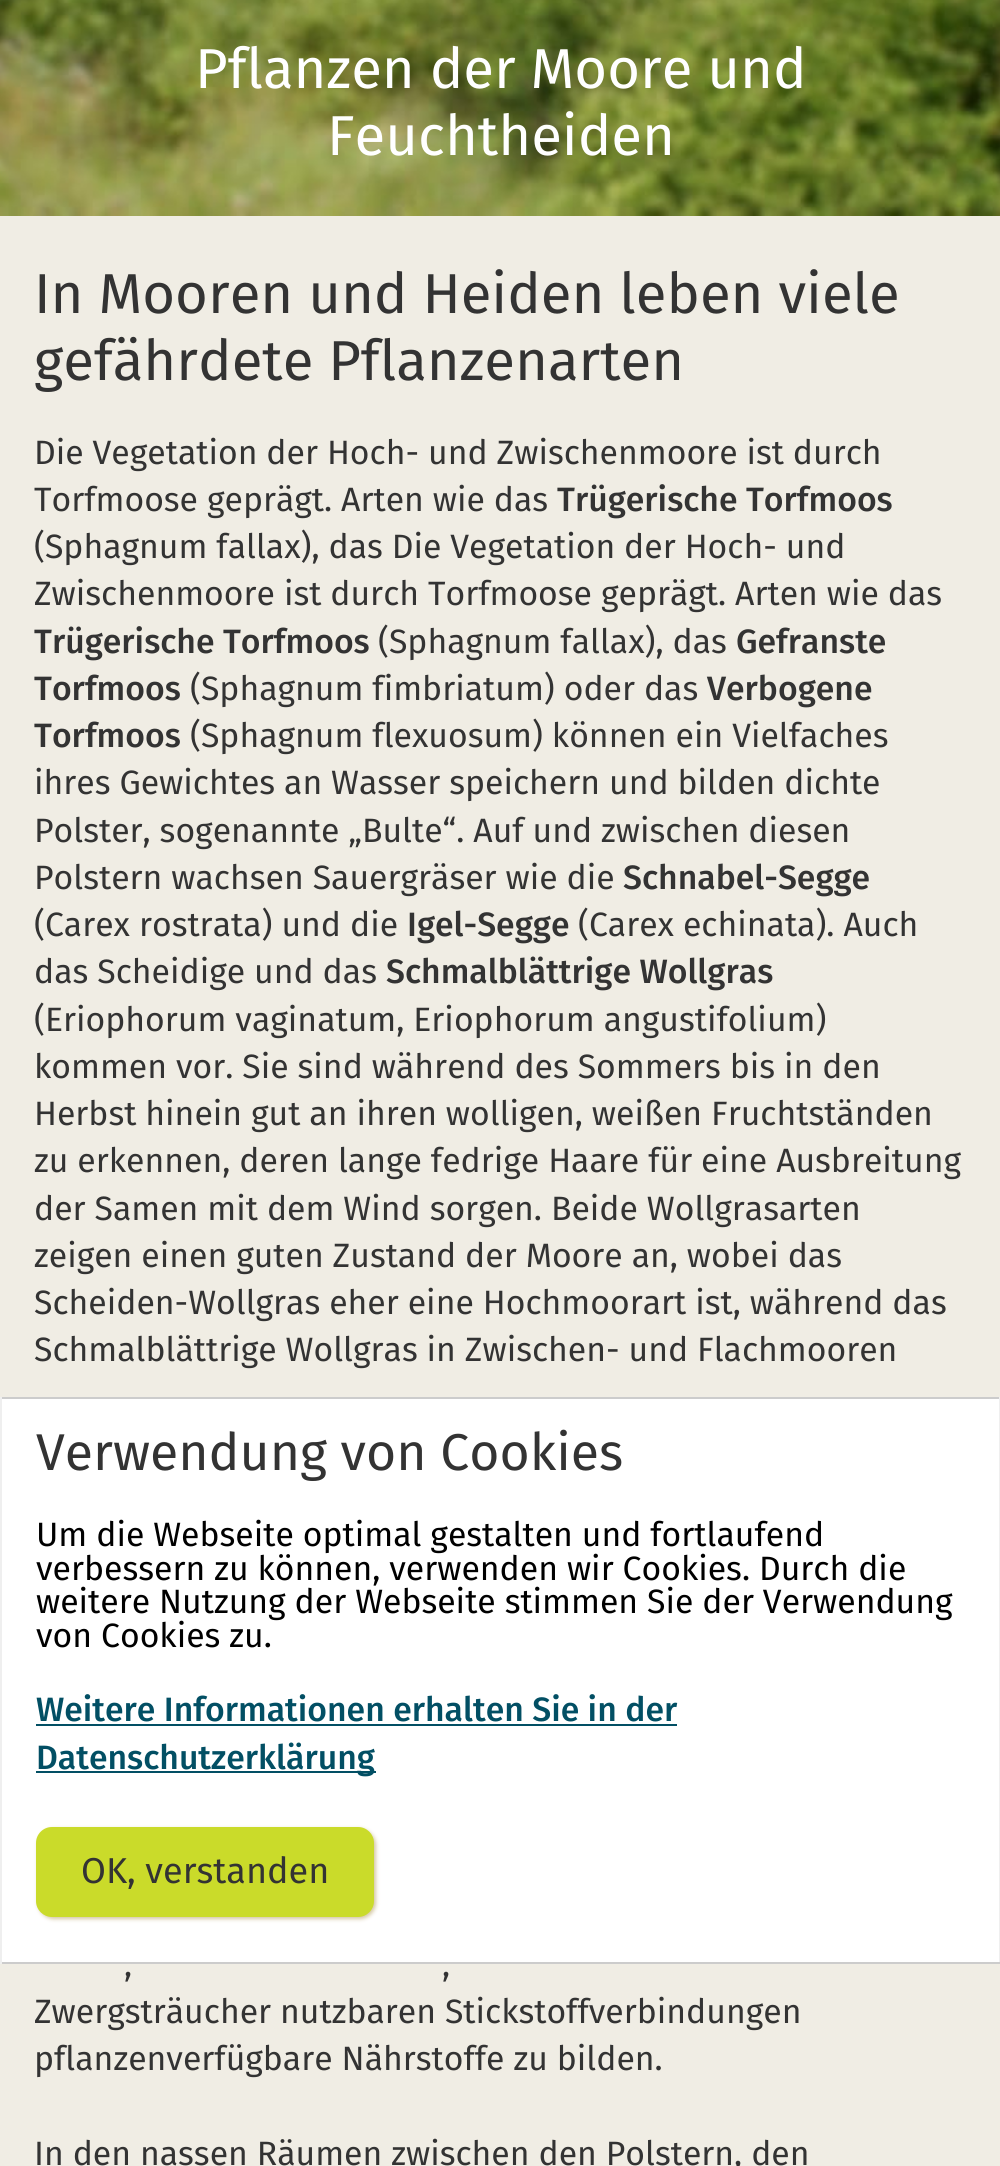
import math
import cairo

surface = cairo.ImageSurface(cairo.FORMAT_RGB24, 1000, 2166)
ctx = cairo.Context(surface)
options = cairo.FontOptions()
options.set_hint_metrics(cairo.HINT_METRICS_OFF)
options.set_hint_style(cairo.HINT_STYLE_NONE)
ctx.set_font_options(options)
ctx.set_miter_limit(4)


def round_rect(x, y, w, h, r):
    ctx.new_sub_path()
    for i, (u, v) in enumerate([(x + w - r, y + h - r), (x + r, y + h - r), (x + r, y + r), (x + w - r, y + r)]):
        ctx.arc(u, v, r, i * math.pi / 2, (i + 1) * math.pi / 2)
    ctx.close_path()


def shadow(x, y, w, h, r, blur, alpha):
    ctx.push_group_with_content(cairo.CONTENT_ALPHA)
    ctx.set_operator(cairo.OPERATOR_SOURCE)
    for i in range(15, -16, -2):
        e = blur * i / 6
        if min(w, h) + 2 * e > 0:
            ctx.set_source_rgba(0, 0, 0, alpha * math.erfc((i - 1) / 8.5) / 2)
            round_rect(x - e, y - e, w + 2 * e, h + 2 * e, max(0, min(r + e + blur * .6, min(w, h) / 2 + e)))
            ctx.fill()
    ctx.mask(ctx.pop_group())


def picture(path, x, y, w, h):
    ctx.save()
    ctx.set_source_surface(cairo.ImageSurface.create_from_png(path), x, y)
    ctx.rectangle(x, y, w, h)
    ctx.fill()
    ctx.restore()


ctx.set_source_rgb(0.941, 0.929, 0.894)
ctx.paint()
picture("img1.png", 0, 0, 1000, 216)
ctx.select_font_face("Fira Sans")
ctx.set_font_size(56.25)
ctx.set_source_rgb(1, 1, 1)
ctx.move_to(195, 88)
ctx.show_text("Pflanzen der Moore und")
ctx.move_to(327, 155)
ctx.show_text("Feuchtheiden")
ctx.set_source_rgb(0.2, 0.2, 0.2)
ctx.move_to(34, 313)
ctx.show_text("In Mooren und Heiden leben viele")
ctx.move_to(34, 380)
ctx.show_text("gefährdete Pflanzenarten")
ctx.set_font_size(33.75)
ctx.move_to(34, 464)
ctx.show_text("Die Vegetation der Hoch- und Zwischenmoore ist durch")
ctx.move_to(34, 511)
ctx.show_text("Torfmoose geprägt. Arten wie das")
ctx.select_font_face("Fira Sans Medium")
ctx.move_to(557, 511)
ctx.show_text("Trügerische Torfmoos")
ctx.select_font_face("Fira Sans")
ctx.move_to(34, 558)
ctx.show_text("(Sphagnum fallax), das Die Vegetation der Hoch- und")
ctx.move_to(34, 605)
ctx.show_text("Zwischenmoore ist durch Torfmoose geprägt. Arten wie das")
ctx.select_font_face("Fira Sans Medium")
ctx.move_to(34, 653)
ctx.show_text("Trügerische Torfmoos")
ctx.select_font_face("Fira Sans")
ctx.move_to(378, 653)
ctx.show_text("(Sphagnum fallax), das")
ctx.select_font_face("Fira Sans Medium")
ctx.move_to(736, 653)
ctx.show_text("Gefranste")
ctx.move_to(34, 700)
ctx.show_text("Torfmoos")
ctx.select_font_face("Fira Sans")
ctx.move_to(190, 700)
ctx.show_text("(Sphagnum fimbriatum) oder das")
ctx.select_font_face("Fira Sans Medium")
ctx.move_to(707, 700)
ctx.show_text("Verbogene")
ctx.move_to(34, 747)
ctx.show_text("Torfmoos")
ctx.select_font_face("Fira Sans")
ctx.move_to(190, 747)
ctx.show_text("(Sphagnum flexuosum) können ein Vielfaches")
ctx.move_to(34, 794)
ctx.show_text("ihres Gewichtes an Wasser speichern und bilden dichte")
ctx.move_to(34, 842)
ctx.show_text("Polster, sogenannte „Bulte“. Auf und zwischen diesen")
ctx.move_to(34, 889)
ctx.show_text("Polstern wachsen Sauergräser wie die")
ctx.select_font_face("Fira Sans Medium")
ctx.move_to(623, 889)
ctx.show_text("Schnabel-Segge")
ctx.select_font_face("Fira Sans")
ctx.move_to(34, 936)
ctx.show_text("(Carex rostrata) und die")
ctx.select_font_face("Fira Sans Medium")
ctx.move_to(407, 936)
ctx.show_text("Igel-Segge")
ctx.select_font_face("Fira Sans")
ctx.move_to(578, 936)
ctx.show_text("(Carex echinata). Auch")
ctx.move_to(34, 983)
ctx.show_text("das Scheidige und das")
ctx.select_font_face("Fira Sans Medium")
ctx.move_to(386, 983)
ctx.show_text("Schmalblättrige Wollgras")
ctx.select_font_face("Fira Sans")
ctx.move_to(34, 1031)
ctx.show_text("(Eriophorum vaginatum, Eriophorum angustifolium)")
ctx.move_to(34, 1078)
ctx.show_text("kommen vor. Sie sind während des Sommers bis in den")
ctx.move_to(34, 1125)
ctx.show_text("Herbst hinein gut an ihren wolligen, weißen Fruchtständen")
ctx.move_to(34, 1172)
ctx.show_text("zu erkennen, deren lange fedrige Haare für eine Ausbreitung")
ctx.move_to(34, 1220)
ctx.show_text("der Samen mit dem Wind sorgen. Beide Wollgrasarten")
ctx.move_to(34, 1267)
ctx.show_text("zeigen einen guten Zustand der Moore an, wobei das")
ctx.move_to(34, 1314)
ctx.show_text("Scheiden-Wollgras eher eine Hochmoorart ist, während das")
ctx.move_to(34, 1361)
ctx.show_text("Schmalblättrige Wollgras in Zwischen- und Flachmooren")
ctx.move_to(124, 1976)
ctx.show_text(",")
ctx.move_to(442, 1976)
ctx.show_text(",")
ctx.move_to(34, 2023)
ctx.show_text("Zwergsträucher nutzbaren Stickstoffverbindungen")
ctx.move_to(34, 2070)
ctx.show_text("pflanzenverfügbare Nährstoffe zu bilden.")
ctx.move_to(34, 2165)
ctx.show_text("In den nassen Räumen zwischen den Polstern, den")
ctx.set_source_rgb(1, 1, 1)
ctx.rectangle(2, 1399, 997, 563)
ctx.fill()
ctx.set_source_rgb(0.8, 0.8, 0.8)
ctx.rectangle(0, 1397, 1000, 2)
ctx.fill()
ctx.set_source_rgb(0.937, 0.937, 0.937)
ctx.rectangle(999, 1397, 1, 567)
ctx.fill()
ctx.set_source_rgb(0.8, 0.8, 0.8)
ctx.rectangle(0, 1962, 1000, 2)
ctx.fill()
ctx.set_source_rgb(0.937, 0.937, 0.937)
ctx.rectangle(0, 1397, 2, 567)
ctx.fill()
ctx.set_font_size(51.75)
ctx.set_source_rgb(0.2, 0.2, 0.2)
ctx.move_to(36, 1470)
ctx.show_text("Verwendung von Cookies")
ctx.set_font_size(33.75)
ctx.set_source_rgb(0, 0, 0)
ctx.move_to(36, 1546)
ctx.show_text("Um die Webseite optimal gestalten und fortlaufend")
ctx.move_to(36, 1580)
ctx.show_text("verbessern zu können, verwenden wir Cookies. Durch die")
ctx.move_to(36, 1613)
ctx.show_text("weitere Nutzung der Webseite stimmen Sie der Verwendung")
ctx.move_to(36, 1647)
ctx.show_text("von Cookies zu.")
ctx.select_font_face("Fira Sans Medium")
ctx.set_source_rgb(0.008, 0.31, 0.392)
ctx.move_to(36, 1721)
ctx.show_text("Weitere Informationen erhalten Sie in der")
ctx.rectangle(36, 1724, 641, 2)
ctx.fill()
ctx.rectangle(36, 1771, 340, 2)
ctx.fill()
ctx.move_to(36, 1769)
ctx.show_text("Datenschutzerklärung")
ctx.set_source_rgb(0.835, 0.78, 0.643)
shadow(38, 1829, 338, 90, 16, 2, 1)
ctx.set_source_rgb(0.792, 0.859, 0.165)
round_rect(36, 1827, 338, 90, 16)
ctx.fill()
ctx.select_font_face("Fira Sans")
ctx.set_font_size(36)
ctx.set_source_rgb(0.2, 0.2, 0.2)
ctx.move_to(81, 1883)
ctx.show_text("OK, verstanden")
surface.write_to_png("page.png")
